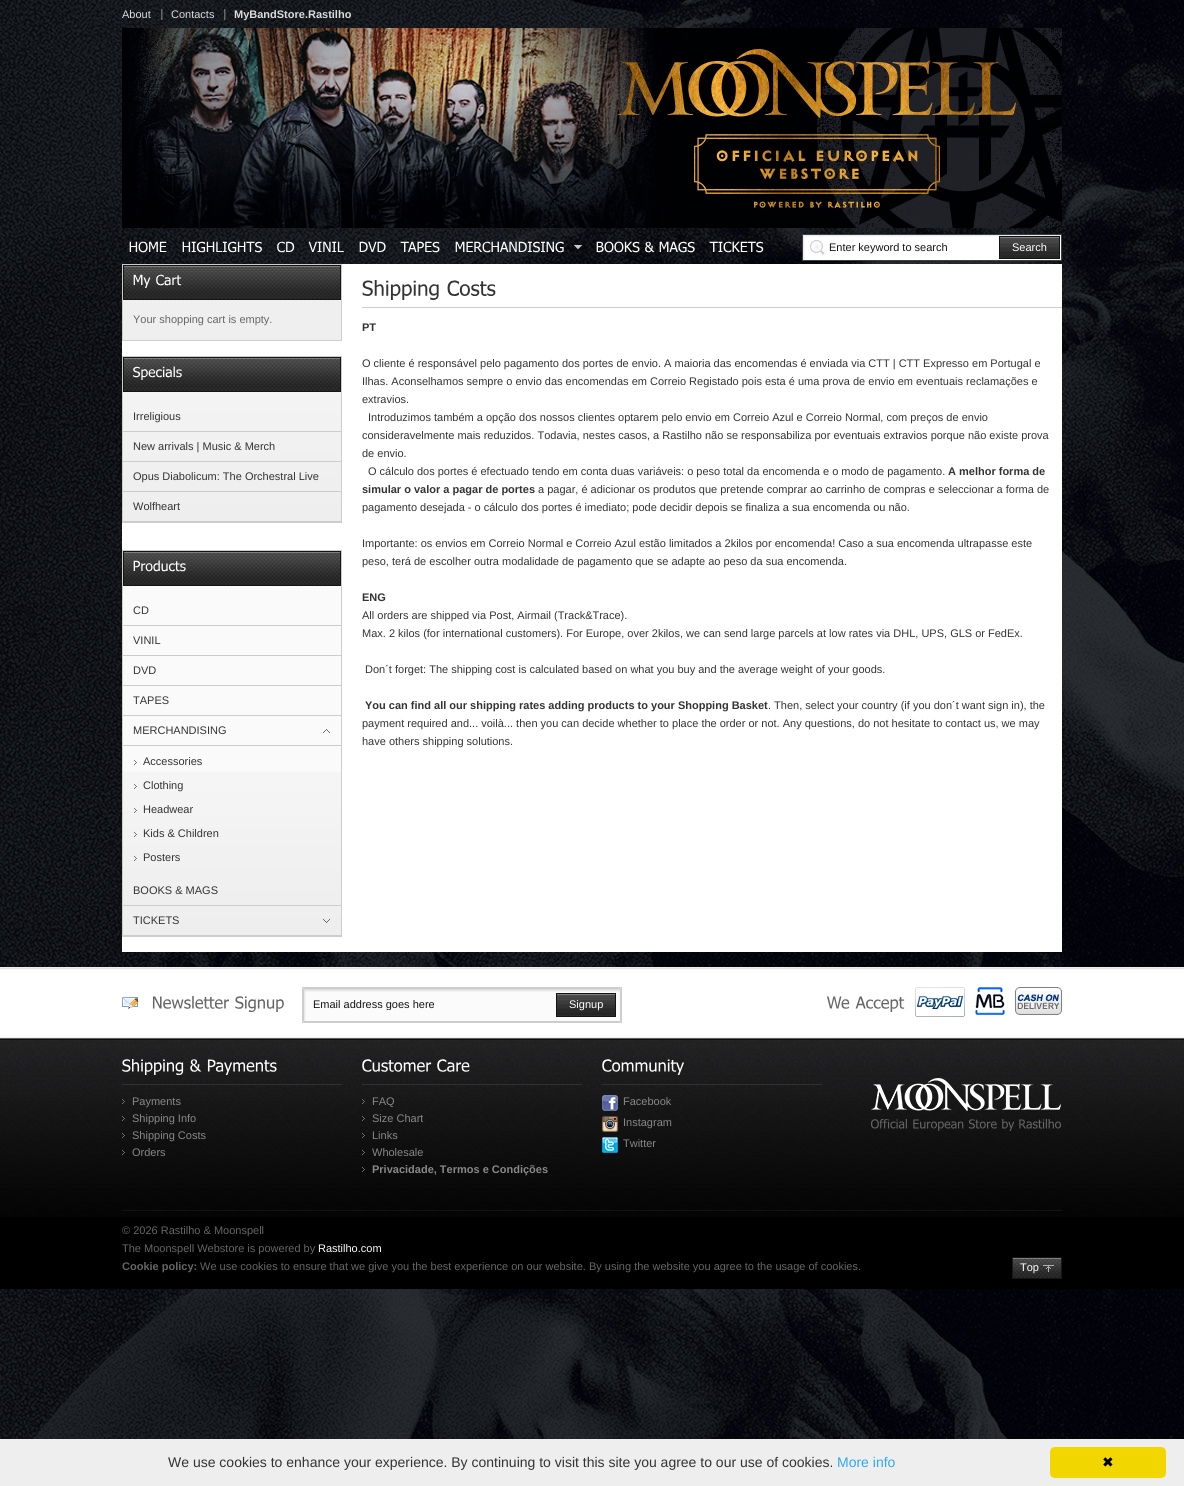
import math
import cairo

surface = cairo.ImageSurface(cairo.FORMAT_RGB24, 1184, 1486)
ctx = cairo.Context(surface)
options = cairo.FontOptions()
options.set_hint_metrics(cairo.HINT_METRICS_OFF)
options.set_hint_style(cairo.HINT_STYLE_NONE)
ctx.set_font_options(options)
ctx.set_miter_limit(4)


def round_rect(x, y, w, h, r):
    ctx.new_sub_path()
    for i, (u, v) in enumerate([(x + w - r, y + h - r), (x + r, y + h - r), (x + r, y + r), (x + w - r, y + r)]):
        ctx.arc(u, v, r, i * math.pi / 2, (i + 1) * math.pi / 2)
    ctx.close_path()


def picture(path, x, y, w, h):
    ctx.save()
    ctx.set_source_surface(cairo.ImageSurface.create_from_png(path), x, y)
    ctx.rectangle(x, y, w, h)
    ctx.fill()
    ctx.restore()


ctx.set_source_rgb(1, 1, 1)
ctx.paint()
picture("img1.png", 0, 0, 1184, 1439)
ctx.select_font_face("Liberation Sans")
ctx.set_font_size(11)
ctx.set_source_rgb(0.867, 0.867, 0.867)
ctx.move_to(122, 18)
ctx.show_text("About")
picture("img2.png", 161, 9, 2, 11)
ctx.move_to(171, 18)
ctx.show_text("Contacts")
picture("img2.png", 224, 9, 2, 11)
ctx.select_font_face("Liberation Sans", cairo.FONT_SLANT_NORMAL, cairo.FONT_WEIGHT_BOLD)
ctx.move_to(234, 18)
ctx.show_text("MyBandStore.Rastilho")
picture("img3.png", 122, 28, 940, 200)
picture("img4.png", 129, 241, 38, 12)
picture("img5.png", 182, 241, 80, 12)
picture("img6.png", 277, 241, 18, 12)
picture("img7.png", 308, 241, 36, 11)
picture("img8.png", 359, 241, 27, 11)
picture("img9.png", 400, 241, 40, 12)
picture("img10.png", 455, 241, 109, 12)
picture("img11.png", 574, 245, 8, 4)
picture("img12.png", 596, 241, 44, 12)
picture("img13.png", 645, 241, 10, 12)
picture("img14.png", 659, 241, 36, 12)
picture("img15.png", 709, 241, 55, 12)
picture("img16.png", 803, 235, 258, 25)
ctx.rectangle(802.5, 234.5, 259, 26)
ctx.set_source_rgb(0.231, 0.251, 0.275)
ctx.set_line_width(1)
ctx.stroke()
ctx.select_font_face("Liberation Sans")
ctx.set_source_rgb(0.082, 0.082, 0.082)
ctx.move_to(829, 251)
ctx.show_text("Enter keyword to search")
picture("img17.png", 1000, 237, 59, 21)
ctx.rectangle(999.5, 236.5, 60, 22)
ctx.stroke()
ctx.set_source_rgb(1, 1, 1)
ctx.move_to(1012, 251)
ctx.show_text("Search")
ctx.rectangle(122, 264, 940, 688)
ctx.fill()
ctx.set_source_rgb(0.937, 0.937, 0.937)
ctx.rectangle(123, 300, 218, 40)
ctx.fill()
ctx.rectangle(122.5, 264.5, 219, 76)
ctx.set_source_rgb(0.8, 0.8, 0.8)
ctx.stroke()
picture("img18.png", 123, 265, 218, 35)
picture("img19.png", 133, 274, 18, 14)
picture("img20.png", 156, 274, 26, 12)
ctx.set_source_rgb(0.4, 0.4, 0.4)
ctx.move_to(133, 323)
ctx.show_text("Your shopping cart is empty.")
picture("img21.png", 123, 392, 218, 129)
ctx.rectangle(122.5, 356.5, 219, 166)
ctx.set_source_rgb(0.8, 0.8, 0.8)
ctx.stroke()
picture("img18.png", 123, 357, 218, 35)
picture("img22.png", 133, 366, 49, 14)
ctx.rectangle(123, 431, 218, 1)
ctx.fill()
ctx.set_source_rgb(0.2, 0.2, 0.2)
ctx.move_to(133, 420)
ctx.show_text("Irreligious")
ctx.set_source_rgb(0.8, 0.8, 0.8)
ctx.rectangle(123, 461, 218, 1)
ctx.fill()
ctx.set_source_rgb(0.2, 0.2, 0.2)
ctx.move_to(133, 450)
ctx.show_text("New arrivals | Music & Merch")
ctx.set_source_rgb(0.8, 0.8, 0.8)
ctx.rectangle(123, 491, 218, 1)
ctx.fill()
ctx.set_source_rgb(0.2, 0.2, 0.2)
ctx.move_to(133, 480)
ctx.show_text("Opus Diabolicum: The Orchestral Live")
ctx.set_source_rgb(0.8, 0.8, 0.8)
ctx.rectangle(123, 521, 218, 1)
ctx.fill()
ctx.set_source_rgb(0.2, 0.2, 0.2)
ctx.move_to(133, 510)
ctx.show_text("Wolfheart")
ctx.set_source_rgb(0.98, 0.98, 0.98)
ctx.rectangle(123, 586, 218, 186)
ctx.fill()
picture("img23.png", 123, 772, 218, 163)
ctx.rectangle(122.5, 550.5, 219, 386)
ctx.set_source_rgb(0.8, 0.8, 0.8)
ctx.stroke()
picture("img18.png", 123, 551, 218, 35)
picture("img24.png", 133, 560, 53, 12)
ctx.rectangle(123, 625, 218, 1)
ctx.fill()
ctx.set_source_rgb(0.2, 0.2, 0.2)
ctx.move_to(133, 614)
ctx.show_text("CD")
ctx.set_source_rgb(0.8, 0.8, 0.8)
ctx.rectangle(123, 655, 218, 1)
ctx.fill()
ctx.set_source_rgb(0.2, 0.2, 0.2)
ctx.move_to(133, 644)
ctx.show_text("VINIL")
ctx.set_source_rgb(0.8, 0.8, 0.8)
ctx.rectangle(123, 685, 218, 1)
ctx.fill()
ctx.set_source_rgb(0.2, 0.2, 0.2)
ctx.move_to(133, 674)
ctx.show_text("DVD")
ctx.set_source_rgb(0.8, 0.8, 0.8)
ctx.rectangle(123, 715, 218, 1)
ctx.fill()
ctx.set_source_rgb(0.2, 0.2, 0.2)
ctx.move_to(133, 704)
ctx.show_text("TAPES")
picture("img25.png", 323, 729, 7, 4)
ctx.set_source_rgb(0.8, 0.8, 0.8)
ctx.rectangle(123, 745, 218, 1)
ctx.fill()
ctx.set_source_rgb(0.2, 0.2, 0.2)
ctx.move_to(133, 734)
ctx.show_text("MERCHANDISING")
picture("img26.png", 134, 760, 3, 5)
ctx.move_to(143, 765)
ctx.show_text("Accessories")
picture("img27.png", 134, 784, 3, 5)
ctx.move_to(143, 789)
ctx.show_text("Clothing")
picture("img28.png", 134, 808, 3, 5)
ctx.move_to(143, 813)
ctx.show_text("Headwear")
picture("img29.png", 134, 832, 3, 5)
ctx.move_to(143, 837)
ctx.show_text("Kids & Children")
picture("img30.png", 134, 856, 3, 5)
ctx.move_to(143, 861)
ctx.show_text("Posters")
ctx.set_source_rgb(0.8, 0.8, 0.8)
ctx.rectangle(123, 905, 218, 1)
ctx.fill()
ctx.set_source_rgb(0.2, 0.2, 0.2)
ctx.move_to(133, 894)
ctx.show_text("BOOKS & MAGS")
picture("img31.png", 323, 919, 7, 4)
ctx.set_source_rgb(0.8, 0.8, 0.8)
ctx.rectangle(123, 935, 218, 1)
ctx.fill()
ctx.set_source_rgb(0.2, 0.2, 0.2)
ctx.move_to(133, 924)
ctx.show_text("TICKETS")
ctx.set_source_rgb(0.8, 0.8, 0.8)
ctx.rectangle(362, 307, 700, 1)
ctx.fill()
picture("img32.png", 362, 280, 77, 20)
picture("img33.png", 447, 280, 49, 16)
ctx.select_font_face("Liberation Sans", cairo.FONT_SLANT_NORMAL, cairo.FONT_WEIGHT_BOLD)
ctx.set_source_rgb(0.2, 0.2, 0.2)
ctx.move_to(362, 331)
ctx.show_text("PT")
ctx.select_font_face("Liberation Sans")
ctx.move_to(362, 367)
ctx.show_text("O cliente é responsável pelo pagamento dos portes de envio. A maioria das encomendas é enviada via CTT | CTT Expresso em Portugal e")
ctx.move_to(362, 385)
ctx.show_text("Ilhas. Aconselhamos sempre o envio das encomendas em Correio Registado pois esta é uma prova de envio em eventuais reclamações e")
ctx.move_to(362, 403)
ctx.show_text("extravios.")
ctx.move_to(368, 421)
ctx.show_text("Introduzimos também a opção dos nossos clientes optarem pelo envio em Correio Azul e Correio Normal, com preços de envio")
ctx.move_to(362, 439)
ctx.show_text("consideravelmente mais reduzidos. Todavia, nestes casos, a Rastilho não se responsabiliza por eventuais extravios porque não existe prova")
ctx.move_to(362, 457)
ctx.show_text("de envio.")
ctx.move_to(368, 475)
ctx.show_text("O cálculo dos portes é efectuado tendo em conta duas variáveis: o peso total da encomenda e o modo de pagamento.")
ctx.select_font_face("Liberation Sans", cairo.FONT_SLANT_NORMAL, cairo.FONT_WEIGHT_BOLD)
ctx.move_to(948, 475)
ctx.show_text("A melhor forma de")
ctx.move_to(362, 493)
ctx.show_text("simular o valor a pagar de portes")
ctx.select_font_face("Liberation Sans")
ctx.move_to(538, 493)
ctx.show_text("a pagar, é adicionar os produtos que pretende comprar ao carrinho de compras e seleccionar a forma de")
ctx.move_to(362, 511)
ctx.show_text("pagamento desejada - o cálculo dos portes é imediato; pode decidir depois se finaliza a sua encomenda ou não.")
ctx.move_to(362, 547)
ctx.show_text("Importante: os envios em Correio Normal e Correio Azul estão limitados a 2kilos por encomenda! Caso a sua encomenda ultrapasse este")
ctx.move_to(362, 565)
ctx.show_text("peso, terá de escolher outra modalidade de pagamento que se adapte ao peso da sua encomenda.")
ctx.select_font_face("Liberation Sans", cairo.FONT_SLANT_NORMAL, cairo.FONT_WEIGHT_BOLD)
ctx.move_to(362, 601)
ctx.show_text("ENG")
ctx.select_font_face("Liberation Sans")
ctx.move_to(362, 619)
ctx.show_text("All orders are shipped via Post, Airmail (Track&Trace).")
ctx.move_to(362, 637)
ctx.show_text("Max. 2 kilos (for international customers). For Europe, over 2kilos, we can send large parcels at low rates via DHL, UPS, GLS or FedEx.")
ctx.move_to(365, 673)
ctx.show_text("Don´t forget: The shipping cost is calculated based on what you buy and the average weight of your goods.")
ctx.select_font_face("Liberation Sans", cairo.FONT_SLANT_NORMAL, cairo.FONT_WEIGHT_BOLD)
ctx.move_to(365, 709)
ctx.show_text("You can find all our shipping rates adding products to your Shopping Basket")
ctx.select_font_face("Liberation Sans")
ctx.move_to(768, 709)
ctx.show_text(". Then, select your country (if you don´t want sign in), the")
ctx.move_to(362, 727)
ctx.show_text("payment required and... voilà... then you can decide whether to place the order or not. Any questions, do not hesitate to contact us, we may")
ctx.move_to(362, 745)
ctx.show_text("have others shipping solutions.")
ctx.set_source_rgb(0, 0, 0)
ctx.rectangle(0, 1217, 1184, 72)
ctx.fill()
picture("img34.png", 0, 967, 1184, 250)
picture("img35.png", 122, 997, 16, 12)
picture("img36.png", 152, 996, 77, 13)
picture("img37.png", 235, 996, 49, 16)
picture("img38.png", 303, 988, 318, 34)
ctx.rectangle(302.5, 987.5, 319, 35)
ctx.set_source_rgb(0.808, 0.808, 0.808)
ctx.stroke()
ctx.save()
ctx.rectangle(313, 998, 220, 12)
ctx.clip()
ctx.set_source_rgb(0.082, 0.082, 0.082)
ctx.move_to(313, 1008)
ctx.show_text("Email address goes here")
ctx.restore()
picture("img39.png", 557, 994, 58, 22)
ctx.rectangle(556.5, 993.5, 59, 23)
ctx.set_source_rgb(0.082, 0.082, 0.082)
ctx.stroke()
ctx.set_source_rgb(1, 1, 1)
ctx.move_to(569, 1008)
ctx.show_text("Signup")
picture("img40.png", 827, 996, 23, 13)
picture("img41.png", 855, 996, 50, 16)
picture("img42.png", 915, 987, 50, 30)
picture("img43.png", 975, 987, 30, 28)
picture("img44.png", 1015, 987, 47, 28)
ctx.set_source_rgb(0.188, 0.188, 0.188)
ctx.rectangle(122, 1084, 220, 1)
ctx.fill()
picture("img45.png", 122, 1059, 62, 16)
picture("img46.png", 190, 1059, 12, 13)
picture("img47.png", 207, 1059, 70, 16)
picture("img48.png", 122, 1099, 3, 5)
ctx.set_source_rgb(0.533, 0.533, 0.533)
ctx.move_to(132, 1105)
ctx.show_text("Payments")
picture("img49.png", 122, 1116, 3, 5)
ctx.move_to(132, 1122)
ctx.show_text("Shipping Info")
picture("img50.png", 122, 1133, 3, 5)
ctx.move_to(132, 1139)
ctx.show_text("Shipping Costs")
picture("img51.png", 122, 1150, 3, 5)
ctx.move_to(132, 1156)
ctx.show_text("Orders")
ctx.set_source_rgb(0.188, 0.188, 0.188)
ctx.rectangle(362, 1084, 220, 1)
ctx.fill()
picture("img52.png", 362, 1059, 70, 13)
picture("img53.png", 437, 1059, 33, 13)
picture("img54.png", 362, 1099, 3, 5)
ctx.set_source_rgb(0.533, 0.533, 0.533)
ctx.move_to(372, 1105)
ctx.show_text("FAQ")
picture("img55.png", 362, 1116, 3, 5)
ctx.move_to(372, 1122)
ctx.show_text("Size Chart")
picture("img56.png", 362, 1133, 3, 5)
ctx.move_to(372, 1139)
ctx.show_text("Links")
picture("img57.png", 362, 1150, 3, 5)
ctx.move_to(372, 1156)
ctx.show_text("Wholesale")
picture("img58.png", 362, 1167, 3, 5)
ctx.select_font_face("Liberation Sans", cairo.FONT_SLANT_NORMAL, cairo.FONT_WEIGHT_BOLD)
ctx.move_to(372, 1173)
ctx.show_text("Privacidade, Termos e Condições")
ctx.set_source_rgb(0.188, 0.188, 0.188)
ctx.rectangle(602, 1084, 220, 1)
ctx.fill()
picture("img59.png", 602, 1059, 82, 16)
picture("img60.png", 602, 1095, 16, 16)
ctx.select_font_face("Liberation Sans")
ctx.set_source_rgb(0.533, 0.533, 0.533)
ctx.move_to(623, 1105)
ctx.show_text("Facebook")
picture("img61.png", 602, 1116, 16, 16)
ctx.move_to(623, 1126)
ctx.show_text("Instagram")
picture("img62.png", 602, 1137, 16, 16)
ctx.move_to(623, 1147)
ctx.show_text("Twitter")
picture("img63.png", 871, 1078, 190, 33)
picture("img64.png", 871, 1119, 36, 10)
picture("img65.png", 913, 1119, 51, 12)
picture("img66.png", 968, 1119, 29, 10)
picture("img67.png", 1002, 1119, 13, 12)
picture("img68.png", 1019, 1119, 42, 10)
ctx.set_source_rgb(0.075, 0.075, 0.075)
ctx.rectangle(122, 1210, 940, 1)
ctx.fill()
ctx.set_source_rgb(0.4, 0.4, 0.4)
ctx.move_to(122, 1234)
ctx.show_text("© 2026 Rastilho & Moonspell")
ctx.move_to(122, 1252)
ctx.show_text("The Moonspell Webstore is powered by")
ctx.set_source_rgb(1, 1, 1)
ctx.move_to(318, 1252)
ctx.show_text("Rastilho.com")
ctx.select_font_face("Liberation Sans", cairo.FONT_SLANT_NORMAL, cairo.FONT_WEIGHT_BOLD)
ctx.set_source_rgb(0.4, 0.4, 0.4)
ctx.move_to(122, 1270)
ctx.show_text("Cookie policy:")
ctx.select_font_face("Liberation Sans")
ctx.move_to(200, 1270)
ctx.show_text("We use cookies to ensure that we give you the best experience on our website. By using the website you agree to the usage of cookies.")
picture("img69.png", 1012, 1257, 50, 22)
ctx.set_source_rgb(1, 1, 1)
ctx.move_to(1020, 1271)
ctx.show_text("Top")
ctx.set_source_rgb(0.933, 0.933, 0.933)
ctx.rectangle(0, 1439, 1184, 47)
ctx.fill()
ctx.set_font_size(14)
ctx.set_source_rgb(0.2, 0.2, 0.2)
ctx.move_to(168, 1467)
ctx.show_text("We use cookies to enhance your experience. By continuing to visit this site you agree to our use of cookies.")
ctx.set_source_rgb(0.192, 0.659, 0.941)
ctx.move_to(837, 1467)
ctx.show_text("More info")
ctx.set_source_rgb(0.945, 0.839, 0)
round_rect(1050, 1447, 116, 31, 5)
ctx.fill()
ctx.select_font_face("DejaVu Sans")
ctx.set_source_rgb(0, 0, 0)
ctx.move_to(1102, 1467)
ctx.show_text("✖")
surface.write_to_png("page.png")
